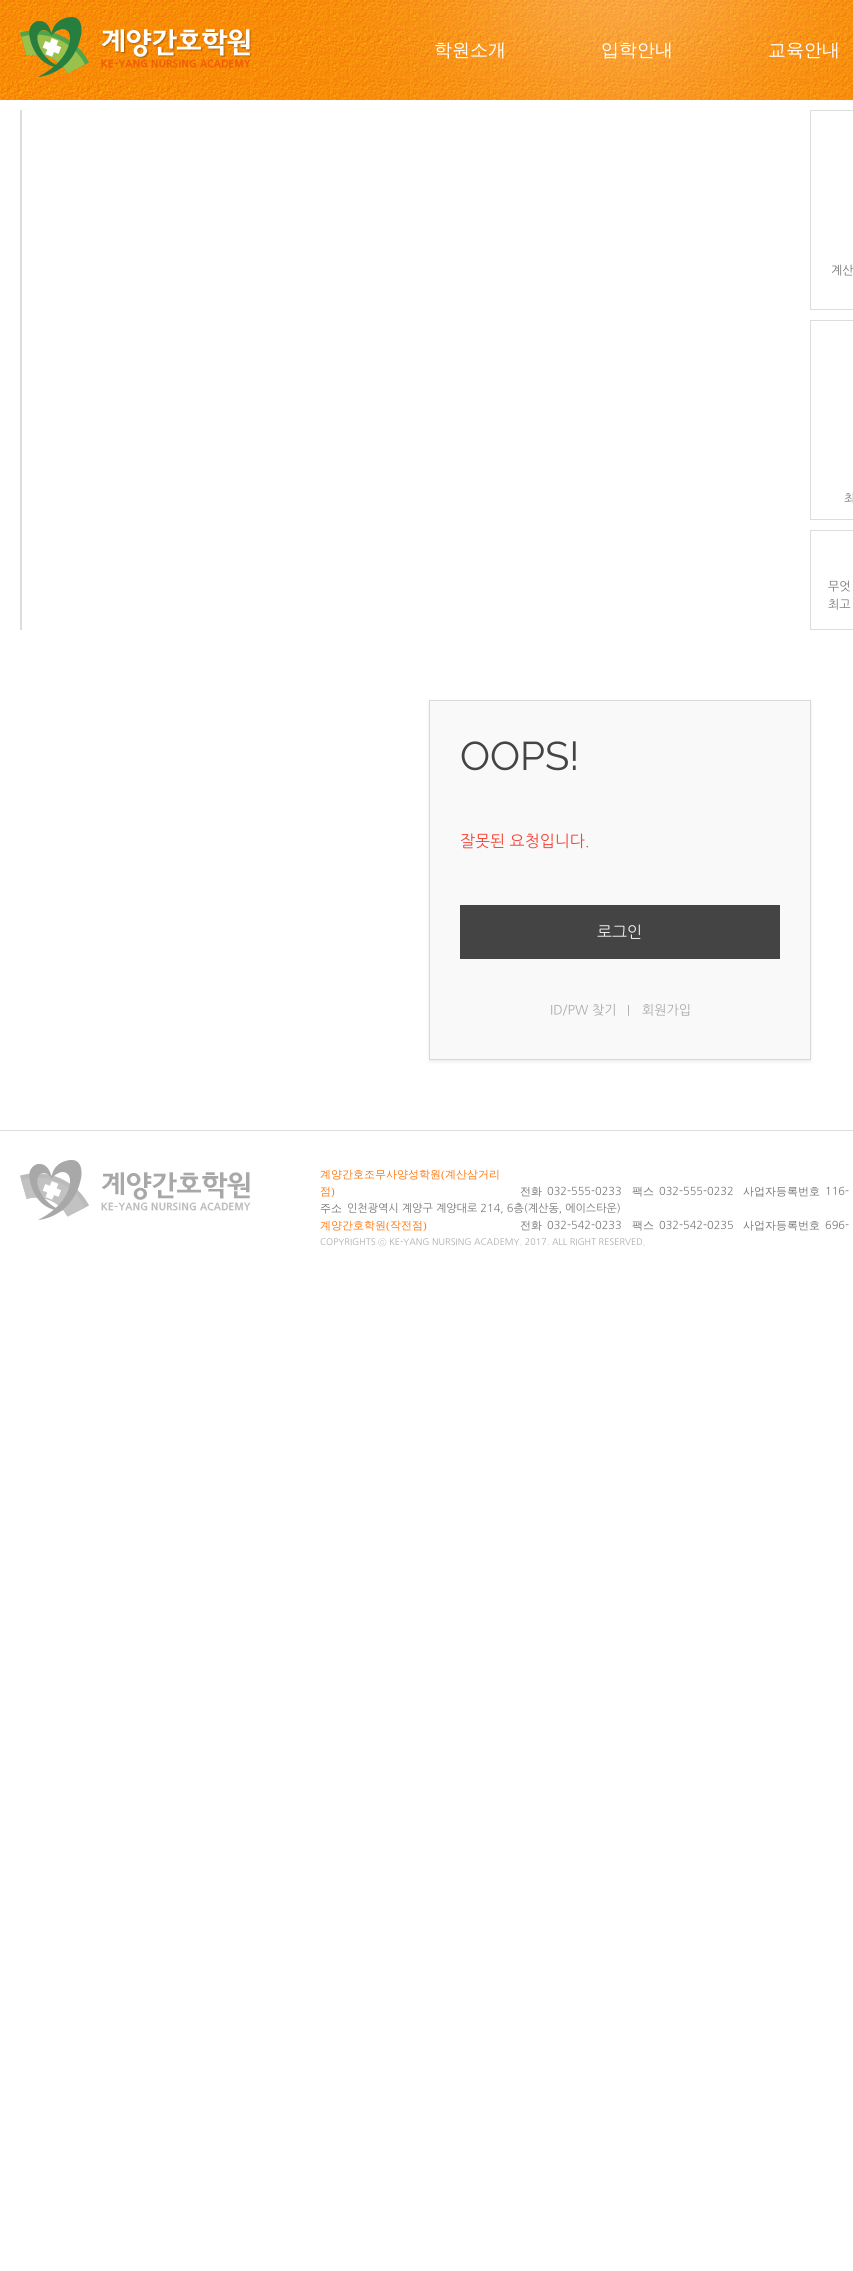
import math
import cairo

surface = cairo.ImageSurface(cairo.FORMAT_RGB24, 853, 2271)
ctx = cairo.Context(surface)
options = cairo.FontOptions()
options.set_hint_metrics(cairo.HINT_METRICS_OFF)
options.set_hint_style(cairo.HINT_STYLE_NONE)
ctx.set_font_options(options)
ctx.set_miter_limit(4)


def round_rect(x, y, w, h, r):
    ctx.new_sub_path()
    for i, (u, v) in enumerate([(x + w - r, y + h - r), (x + r, y + h - r), (x + r, y + r), (x + w - r, y + r)]):
        ctx.arc(u, v, r, i * math.pi / 2, (i + 1) * math.pi / 2)
    ctx.close_path()


def shadow(x, y, w, h, r, blur, alpha):
    ctx.push_group_with_content(cairo.CONTENT_ALPHA)
    ctx.set_operator(cairo.OPERATOR_SOURCE)
    for i in range(15, -16, -2):
        e = blur * i / 6
        if min(w, h) + 2 * e > 0:
            ctx.set_source_rgba(0, 0, 0, alpha * math.erfc((i - 1) / 8.5) / 2)
            round_rect(x - e, y - e, w + 2 * e, h + 2 * e, max(0, min(r + e + blur * .6, min(w, h) / 2 + e)))
            ctx.fill()
    ctx.mask(ctx.pop_group())


def picture(path, x, y, w, h):
    ctx.save()
    ctx.set_source_surface(cairo.ImageSurface.create_from_png(path), x, y)
    ctx.rectangle(x, y, w, h)
    ctx.fill()
    ctx.restore()


ctx.set_source_rgb(1, 1, 1)
ctx.paint()
picture("img1.png", 0, 0, 180, 100)
picture("img2.png", 180, 0, 673, 100)
picture("img3.png", 20, 17, 232, 60)
ctx.select_font_face("WenQuanYi Zen Hei Medium")
ctx.set_font_size(18)
ctx.set_source_rgb(1, 1, 1)
ctx.move_to(434, 56)
ctx.show_text("학원소개")
ctx.move_to(601, 56)
ctx.show_text("입학안내")
ctx.move_to(768, 56)
ctx.show_text("교육안내")
ctx.set_source_rgb(0.867, 0.867, 0.867)
ctx.rectangle(20, 110, 2, 520)
ctx.fill()
ctx.rectangle(810.5, 110.5, 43, 199)
ctx.set_line_width(1)
ctx.stroke()
ctx.select_font_face("NanumGothic")
ctx.set_font_size(12)
ctx.set_source_rgb(0.467, 0.467, 0.467)
ctx.move_to(831, 274)
ctx.show_text("계산")
ctx.rectangle(810.5, 320.5, 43, 199)
ctx.set_source_rgb(0.867, 0.867, 0.867)
ctx.stroke()
ctx.set_source_rgb(0.467, 0.467, 0.467)
ctx.move_to(844, 502)
ctx.show_text("최")
ctx.rectangle(810.5, 530.5, 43, 99)
ctx.set_source_rgb(0.867, 0.867, 0.867)
ctx.stroke()
ctx.set_source_rgb(0.467, 0.467, 0.467)
ctx.move_to(828, 590)
ctx.show_text("무엇")
ctx.move_to(828, 608)
ctx.show_text("최고")
ctx.set_source_rgb(0.933, 0.933, 0.933)
shadow(429, 702, 382, 360, 0, 1.5, 1)
ctx.set_source_rgb(0.976, 0.976, 0.976)
ctx.rectangle(430, 702, 380, 357)
ctx.fill()
ctx.rectangle(429.5, 700.5, 381, 359)
ctx.set_source_rgb(0.847, 0.847, 0.847)
ctx.stroke()
ctx.select_font_face("Raleway")
ctx.set_font_size(40)
ctx.set_source_rgb(0.267, 0.267, 0.267)
ctx.move_to(460, 770)
ctx.show_text("OOPS!")
ctx.select_font_face("NanumGothic")
ctx.set_font_size(16)
ctx.set_source_rgb(0.957, 0.263, 0.212)
ctx.move_to(460, 846)
ctx.show_text("잘못된 요청입니다.")
ctx.set_source_rgb(0.267, 0.267, 0.267)
ctx.rectangle(460, 905, 320, 54)
ctx.fill()
ctx.set_source_rgb(0.933, 0.933, 0.933)
ctx.move_to(597, 937)
ctx.show_text("로그인")
ctx.set_font_size(13)
ctx.set_source_rgb(0.667, 0.667, 0.667)
ctx.move_to(550, 1014)
ctx.show_text("ID/PW 찾기")
ctx.set_font_size(12)
ctx.move_to(627, 1014)
ctx.show_text("|")
ctx.set_font_size(13)
ctx.move_to(642, 1014)
ctx.show_text("회원가입")
ctx.set_source_rgb(0.867, 0.867, 0.867)
ctx.rectangle(0, 1130, 853, 1)
ctx.fill()
picture("img4.png", 20, 1160, 231, 60)
ctx.select_font_face("WenQuanYi Zen Hei Medium")
ctx.set_font_size(11)
ctx.set_source_rgb(1, 0.471, 0.059)
ctx.move_to(320, 1178)
ctx.show_text("계양간호조무사양성학원")
ctx.select_font_face("Liberation Serif")
ctx.move_to(441, 1178)
ctx.show_text("(")
ctx.select_font_face("WenQuanYi Zen Hei Medium")
ctx.move_to(445, 1178)
ctx.show_text("계산삼거리")
ctx.move_to(320, 1195)
ctx.show_text("점")
ctx.select_font_face("Liberation Serif")
ctx.move_to(331, 1195)
ctx.show_text(")")
ctx.select_font_face("WenQuanYi Zen Hei Medium")
ctx.set_source_rgb(0.467, 0.467, 0.467)
ctx.move_to(520, 1195)
ctx.show_text("전화")
ctx.select_font_face("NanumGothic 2")
ctx.move_to(547, 1195)
ctx.show_text("032-555-0233")
ctx.select_font_face("WenQuanYi Zen Hei Medium")
ctx.move_to(632, 1195)
ctx.show_text("팩스")
ctx.select_font_face("NanumGothic 2")
ctx.move_to(659, 1195)
ctx.show_text("032-555-0232")
ctx.select_font_face("WenQuanYi Zen Hei Medium")
ctx.move_to(743, 1195)
ctx.show_text("사업자등록번호")
ctx.select_font_face("NanumGothic 2")
ctx.move_to(825, 1195)
ctx.show_text("116-")
ctx.select_font_face("WenQuanYi Zen Hei Medium")
ctx.move_to(320, 1212)
ctx.show_text("주소")
ctx.select_font_face("NanumGothic 2")
ctx.move_to(347, 1212)
ctx.show_text("인천광역시 계양구 계양대로 214, 6층(계산동, 에이스타운)")
ctx.select_font_face("WenQuanYi Zen Hei Medium")
ctx.set_source_rgb(1, 0.471, 0.059)
ctx.move_to(320, 1229)
ctx.show_text("계양간호학원")
ctx.select_font_face("Liberation Serif")
ctx.move_to(386, 1229)
ctx.show_text("(")
ctx.select_font_face("WenQuanYi Zen Hei Medium")
ctx.move_to(390, 1229)
ctx.show_text("작전점")
ctx.select_font_face("Liberation Serif")
ctx.move_to(423, 1229)
ctx.show_text(")")
ctx.select_font_face("WenQuanYi Zen Hei Medium")
ctx.set_source_rgb(0.467, 0.467, 0.467)
ctx.move_to(520, 1229)
ctx.show_text("전화")
ctx.select_font_face("NanumGothic 2")
ctx.move_to(547, 1229)
ctx.show_text("032-542-0233")
ctx.select_font_face("WenQuanYi Zen Hei Medium")
ctx.move_to(632, 1229)
ctx.show_text("팩스")
ctx.select_font_face("NanumGothic 2")
ctx.move_to(659, 1229)
ctx.show_text("032-542-0235")
ctx.select_font_face("WenQuanYi Zen Hei Medium")
ctx.move_to(743, 1229)
ctx.show_text("사업자등록번호")
ctx.select_font_face("NanumGothic 2")
ctx.move_to(825, 1229)
ctx.show_text("696-")
ctx.set_font_size(9)
ctx.set_source_rgb(0.667, 0.667, 0.667)
ctx.move_to(320, 1245)
ctx.show_text("COPYRIGHTS")
ctx.select_font_face("NanumGothic")
ctx.move_to(378, 1245)
ctx.show_text("ⓒ")
ctx.select_font_face("NanumGothic 2")
ctx.move_to(389, 1245)
ctx.show_text("KE-YANG NURSING ACADEMY. 2017. ALL RIGHT RESERVED.")
surface.write_to_png("page.png")
